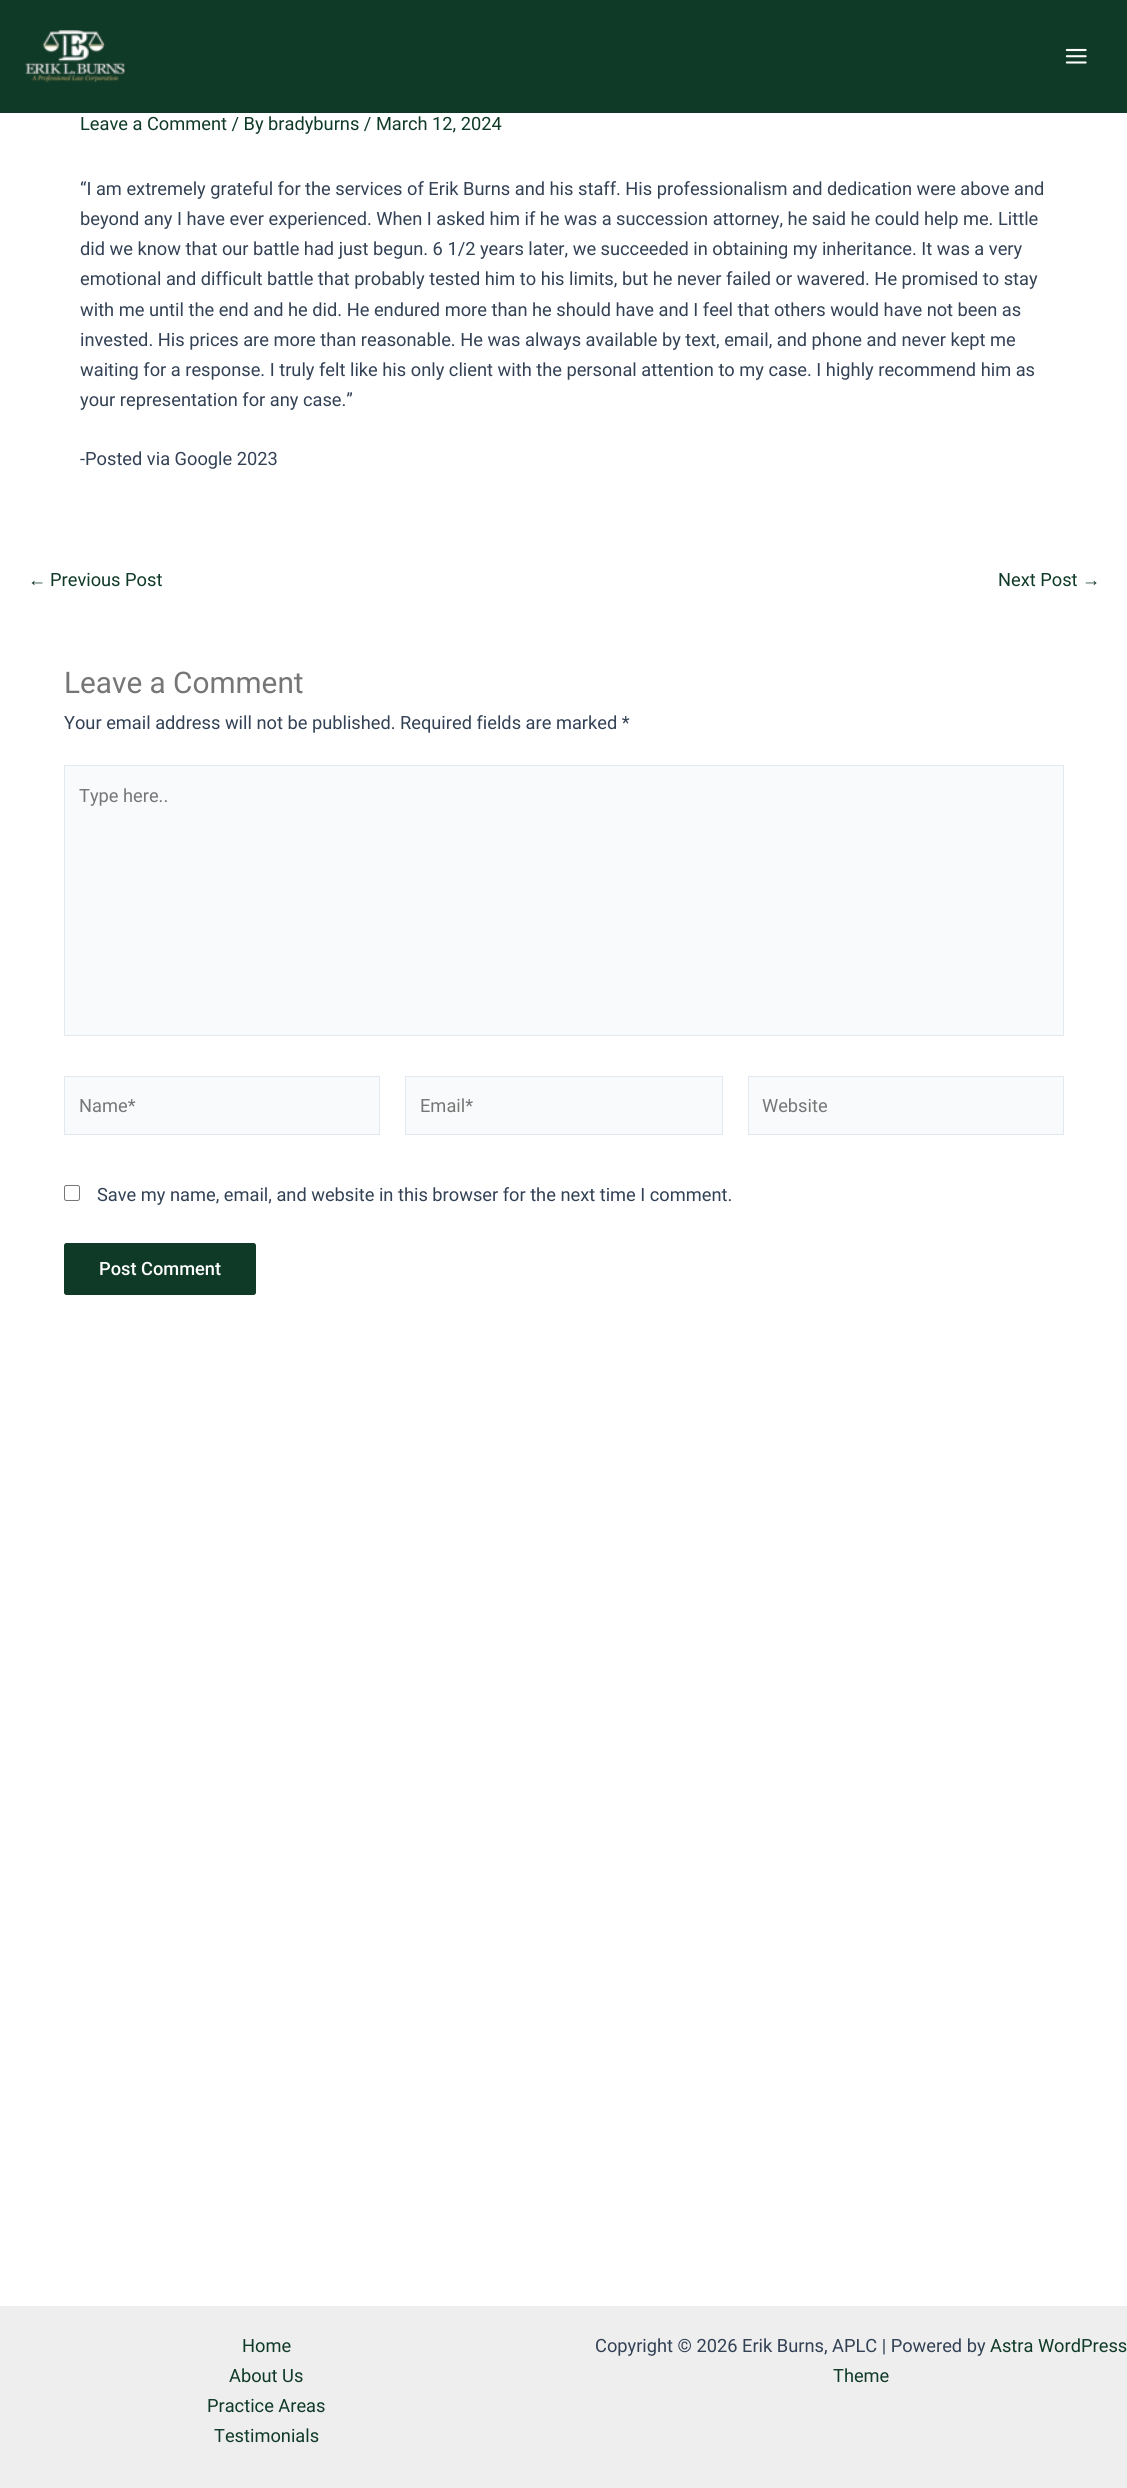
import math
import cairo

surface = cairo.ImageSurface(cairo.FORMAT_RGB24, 1127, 2488)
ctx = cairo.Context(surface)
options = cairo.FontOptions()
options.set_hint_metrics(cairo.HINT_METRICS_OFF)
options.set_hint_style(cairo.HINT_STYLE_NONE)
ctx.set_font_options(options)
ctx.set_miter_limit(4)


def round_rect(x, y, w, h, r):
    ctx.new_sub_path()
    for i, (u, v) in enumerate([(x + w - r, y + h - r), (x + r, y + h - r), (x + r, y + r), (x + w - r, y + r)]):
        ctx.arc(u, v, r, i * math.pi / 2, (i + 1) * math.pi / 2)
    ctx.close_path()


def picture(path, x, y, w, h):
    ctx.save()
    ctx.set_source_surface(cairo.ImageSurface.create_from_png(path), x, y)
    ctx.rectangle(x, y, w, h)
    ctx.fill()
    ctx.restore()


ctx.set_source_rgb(1, 1, 1)
ctx.paint()
ctx.set_source_rgb(0.063, 0.227, 0.157)
ctx.rectangle(0, 0, 1127, 113)
ctx.fill()
picture("img1.png", 25, 30, 100, 53)
picture("img2.png", 1065, 48, 22, 16)
ctx.select_font_face("Roboto")
ctx.set_font_size(18.25)
ctx.move_to(80, 130)
ctx.show_text("Leave a Comment / By bradyburns / March 12, 2024")
ctx.set_source_rgb(0.2, 0.255, 0.333)
ctx.move_to(80, 195)
ctx.show_text("“I am extremely grateful for the services of Erik Burns and his staff. His professionalism and dedication were above and")
ctx.move_to(80, 225)
ctx.show_text("beyond any I have ever experienced. When I asked him if he was a succession attorney, he said he could help me. Little")
ctx.move_to(80, 255)
ctx.show_text("did we know that our battle had just begun. 6 1/2 years later, we succeeded in obtaining my inheritance. It was a very")
ctx.move_to(80, 285)
ctx.show_text("emotional and difficult battle that probably tested him to his limits, but he never failed or wavered. He promised to stay")
ctx.move_to(80, 316)
ctx.show_text("with me until the end and he did. He endured more than he should have and I feel that others would have not been as")
ctx.move_to(80, 346)
ctx.show_text("invested. His prices are more than reasonable. He was always available by text, email, and phone and never kept me")
ctx.move_to(80, 376)
ctx.show_text("waiting for a response. I truly felt like his only client with the personal attention to my case. I highly recommend him as")
ctx.move_to(80, 406)
ctx.show_text("your representation for any case.”")
ctx.move_to(80, 465)
ctx.show_text("-Posted via Google 2023")
ctx.select_font_face("Liberation Sans")
ctx.set_source_rgb(0.063, 0.227, 0.157)
ctx.move_to(28, 586)
ctx.show_text("←")
ctx.select_font_face("Roboto")
ctx.move_to(50, 586)
ctx.show_text("Previous Post")
ctx.move_to(998, 586)
ctx.show_text("Next Post")
ctx.select_font_face("Liberation Sans")
ctx.move_to(1082, 586)
ctx.show_text("→")
ctx.select_font_face("Roboto")
ctx.set_font_size(29.75)
ctx.set_source_rgb(0.463, 0.463, 0.463)
ctx.move_to(64, 693)
ctx.show_text("Leave a Comment")
ctx.set_font_size(18.25)
ctx.set_source_rgb(0.2, 0.255, 0.333)
ctx.move_to(64, 729)
ctx.show_text("Your email address will not be published.")
ctx.move_to(400, 729)
ctx.show_text("Required fields are marked *")
ctx.set_source_rgb(0.976, 0.98, 0.984)
ctx.rectangle(64.5, 765.5, 999, 270)
ctx.fill_preserve()
ctx.set_source_rgb(0.886, 0.91, 0.941)
ctx.set_line_width(1)
ctx.stroke()
ctx.set_source_rgb(0.463, 0.463, 0.463)
ctx.move_to(79, 802)
ctx.show_text("Type here..")
ctx.set_source_rgb(0.976, 0.98, 0.984)
ctx.rectangle(64.5, 1076.5, 315, 58)
ctx.fill_preserve()
ctx.set_source_rgb(0.886, 0.91, 0.941)
ctx.stroke()
ctx.set_source_rgb(0.463, 0.463, 0.463)
ctx.move_to(79, 1112)
ctx.show_text("Name*")
ctx.set_source_rgb(0.976, 0.98, 0.984)
ctx.rectangle(405.5, 1076.5, 317, 58)
ctx.fill_preserve()
ctx.set_source_rgb(0.886, 0.91, 0.941)
ctx.stroke()
ctx.set_source_rgb(0.463, 0.463, 0.463)
ctx.move_to(420, 1112)
ctx.show_text("Email*")
ctx.set_source_rgb(0.976, 0.98, 0.984)
ctx.rectangle(748.5, 1076.5, 315, 58)
ctx.fill_preserve()
ctx.set_source_rgb(0.886, 0.91, 0.941)
ctx.stroke()
ctx.set_source_rgb(0.463, 0.463, 0.463)
ctx.move_to(762, 1112)
ctx.show_text("Website")
round_rect(64.5, 1185.5, 15, 15, 2)
ctx.stroke()
ctx.set_source_rgb(0.2, 0.255, 0.333)
ctx.move_to(97, 1201)
ctx.show_text("Save my name, email, and website in this browser for the next time I comment.")
ctx.set_source_rgb(0.063, 0.227, 0.157)
round_rect(64, 1243, 192, 52, 2.5)
ctx.fill()
ctx.select_font_face("Roboto Medium")
ctx.set_source_rgb(1, 1, 1)
ctx.move_to(99, 1275)
ctx.show_text("Post Comment")
ctx.set_source_rgb(0.933, 0.933, 0.933)
ctx.rectangle(0, 2306, 1127, 182)
ctx.fill()
ctx.select_font_face("Roboto")
ctx.set_source_rgb(0.063, 0.227, 0.157)
ctx.move_to(242, 2352)
ctx.show_text("Home")
ctx.move_to(229, 2382)
ctx.show_text("About Us")
ctx.move_to(207, 2412)
ctx.show_text("Practice Areas")
ctx.move_to(214, 2442)
ctx.show_text("Testimonials")
ctx.set_source_rgb(0.2, 0.255, 0.333)
ctx.move_to(595, 2352)
ctx.show_text("Copyright © 2026 Erik Burns, APLC | Powered by")
ctx.set_source_rgb(0.063, 0.227, 0.157)
ctx.move_to(990, 2352)
ctx.show_text("Astra WordPress")
ctx.move_to(833, 2382)
ctx.show_text("Theme")
surface.write_to_png("page.png")
